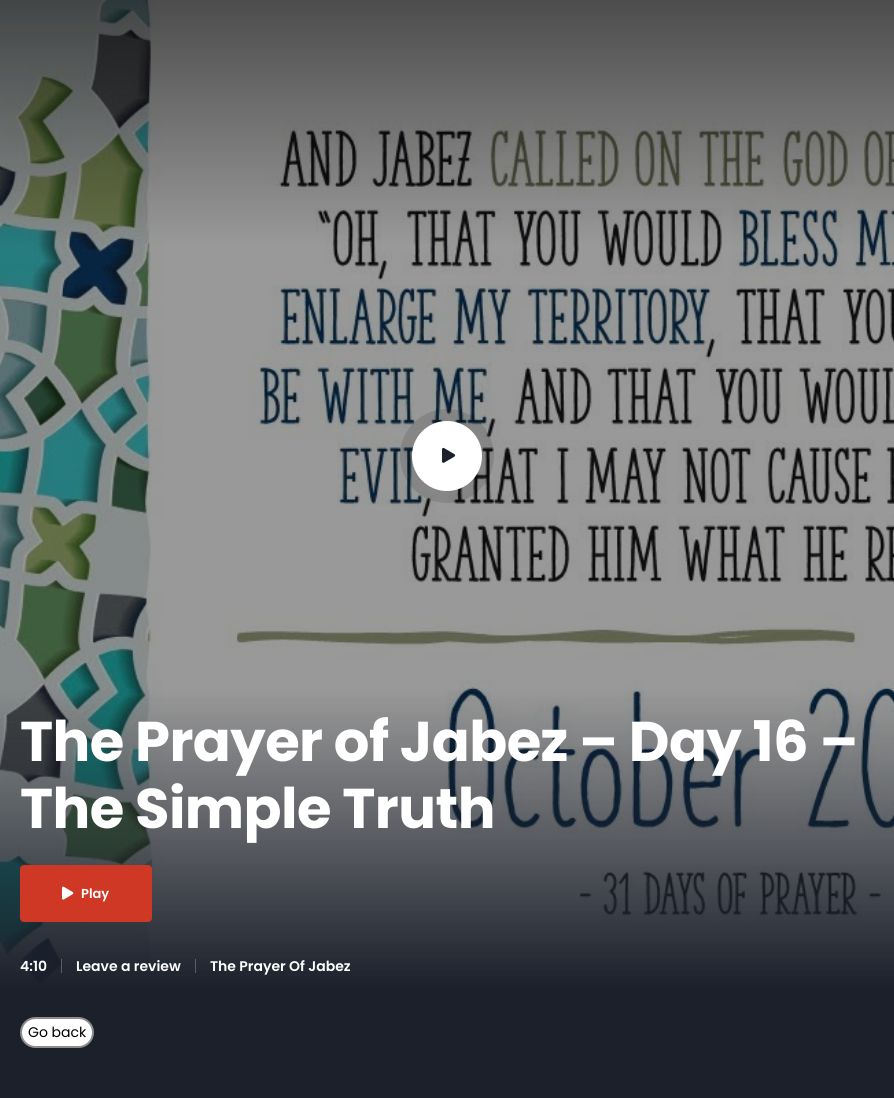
import math
import cairo

surface = cairo.ImageSurface(cairo.FORMAT_RGB24, 894, 1098)
ctx = cairo.Context(surface)
options = cairo.FontOptions()
options.set_hint_metrics(cairo.HINT_METRICS_OFF)
options.set_hint_style(cairo.HINT_STYLE_NONE)
ctx.set_font_options(options)
ctx.set_miter_limit(4)


def spaced_text(x, y, s, letter, word):
    ctx.move_to(x, y)
    for ch in s:
        ctx.show_text(ch)
        ctx.rel_move_to(letter + word * (ch == ' '), 0)


def round_rect(x, y, w, h, r):
    ctx.new_sub_path()
    for i, (u, v) in enumerate([(x + w - r, y + h - r), (x + r, y + h - r), (x + r, y + r), (x + w - r, y + r)]):
        ctx.arc(u, v, r, i * math.pi / 2, (i + 1) * math.pi / 2)
    ctx.close_path()


def picture(path, x, y, w, h):
    ctx.save()
    ctx.set_source_surface(cairo.ImageSurface.create_from_png(path), x, y)
    ctx.rectangle(x, y, w, h)
    ctx.fill()
    ctx.restore()


ctx.set_source_rgb(0.106, 0.125, 0.169)
ctx.paint()
picture("img1.png", 0, 0, 894, 988)
ctx.arc(447, 456, 41, 0, 2 * math.pi)
ctx.set_source_rgba(0, 0, 0, 0.12)
ctx.set_line_width(12)
ctx.stroke()
ctx.set_source_rgb(1, 1, 1)
ctx.arc(447, 456, 35, 0, 2 * math.pi)
ctx.fill()
picture("img2.png", 442, 447, 14, 16)
ctx.select_font_face("Poppins", cairo.FONT_SLANT_NORMAL, cairo.FONT_WEIGHT_BOLD)
ctx.set_font_size(56)
spaced_text(20, 761, "The Prayer of Jabez – Day 16 –", -0.55, 0)
spaced_text(20, 828, "The Simple Truth", -0.55, 0)
ctx.set_source_rgb(0.808, 0.22, 0.141)
round_rect(21, 866, 130, 55, 3)
ctx.fill_preserve()
ctx.set_line_width(2)
ctx.stroke()
picture("img3.png", 62, 886, 12, 14)
ctx.select_font_face("Poppins SemiBold")
ctx.set_font_size(13)
ctx.set_source_rgb(1, 1, 1)
ctx.move_to(81, 898)
ctx.show_text("Play")
ctx.set_font_size(14)
ctx.move_to(20, 971)
ctx.show_text("4:10")
ctx.set_source_rgba(1, 1, 1, 0.25)
ctx.rectangle(61, 959, 1, 14)
ctx.fill()
ctx.set_source_rgb(1, 1, 1)
ctx.move_to(76, 971)
ctx.show_text("Leave a review")
ctx.set_source_rgba(1, 1, 1, 0.25)
ctx.rectangle(195, 959, 1, 14)
ctx.fill()
ctx.set_source_rgb(1, 1, 1)
ctx.move_to(210, 971)
ctx.show_text("The Prayer Of Jabez")
round_rect(21, 1018, 72, 29, 14.5)
ctx.fill_preserve()
ctx.set_source_rgb(0.553, 0.553, 0.553)
ctx.stroke()
ctx.select_font_face("Poppins")
ctx.set_source_rgb(0, 0, 0)
ctx.move_to(28, 1037)
ctx.show_text("Go back")
surface.write_to_png("page.png")
